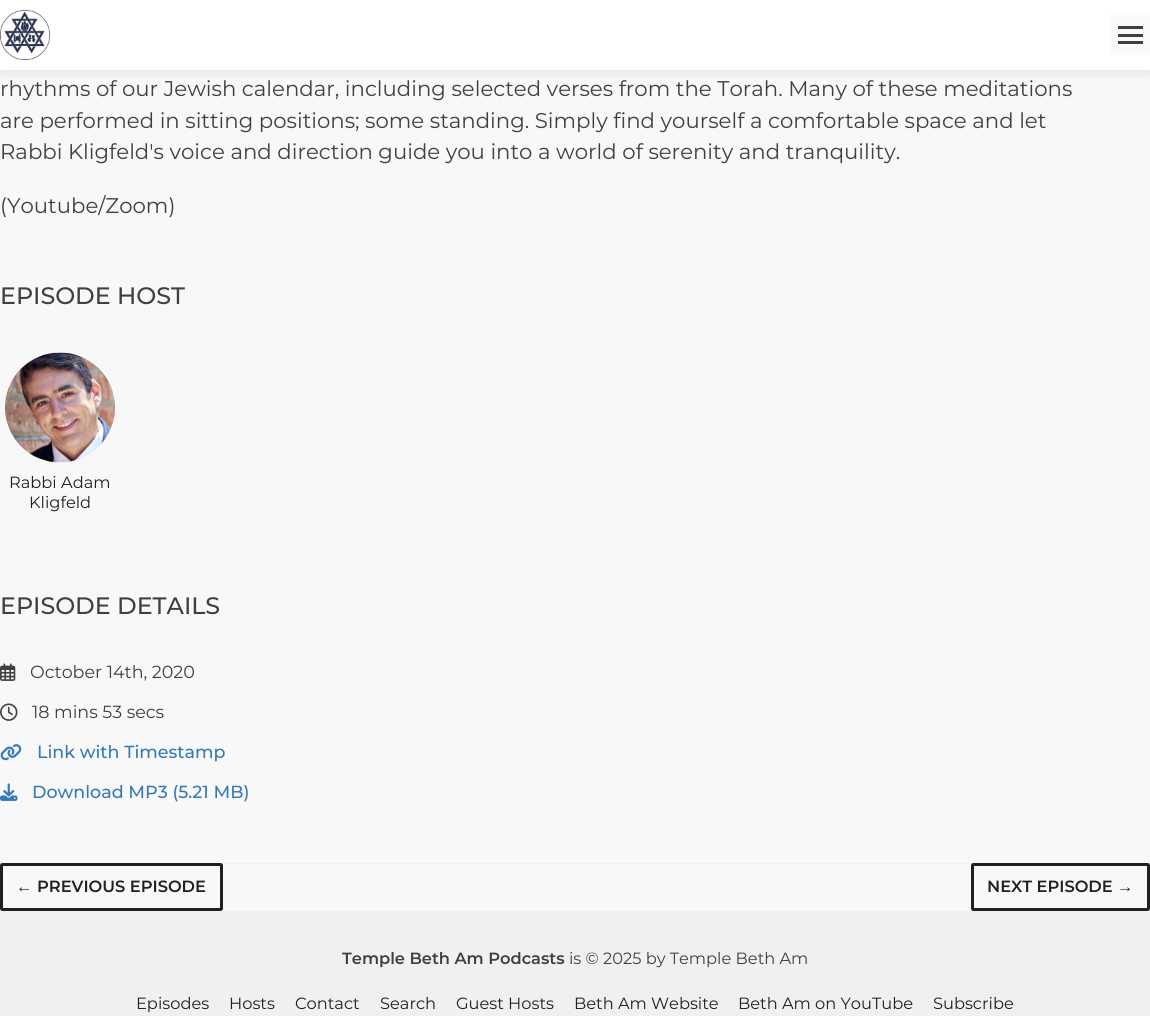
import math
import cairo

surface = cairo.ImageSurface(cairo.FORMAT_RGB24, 1150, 1016)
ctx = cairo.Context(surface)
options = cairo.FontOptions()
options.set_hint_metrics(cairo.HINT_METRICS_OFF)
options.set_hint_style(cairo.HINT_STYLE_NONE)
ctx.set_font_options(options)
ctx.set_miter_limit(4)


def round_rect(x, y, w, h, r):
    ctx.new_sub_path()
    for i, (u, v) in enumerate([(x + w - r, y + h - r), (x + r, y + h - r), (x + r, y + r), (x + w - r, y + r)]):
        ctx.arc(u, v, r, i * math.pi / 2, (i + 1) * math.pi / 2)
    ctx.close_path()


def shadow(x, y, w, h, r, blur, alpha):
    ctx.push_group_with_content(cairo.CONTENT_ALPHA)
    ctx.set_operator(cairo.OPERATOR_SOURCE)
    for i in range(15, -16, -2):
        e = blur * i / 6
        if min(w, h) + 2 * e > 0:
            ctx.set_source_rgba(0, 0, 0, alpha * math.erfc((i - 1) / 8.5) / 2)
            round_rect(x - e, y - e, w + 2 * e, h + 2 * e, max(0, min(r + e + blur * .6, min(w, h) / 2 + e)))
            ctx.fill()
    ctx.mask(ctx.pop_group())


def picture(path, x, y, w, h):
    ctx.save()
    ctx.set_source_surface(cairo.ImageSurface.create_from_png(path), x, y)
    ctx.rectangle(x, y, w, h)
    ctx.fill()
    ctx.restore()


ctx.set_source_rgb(0.969, 0.969, 0.969)
ctx.paint()
ctx.set_source_rgb(1, 1, 1)
ctx.rectangle(0, 0, 1150, 70)
ctx.fill()
ctx.save()
ctx.rectangle(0, 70, 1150, 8)
ctx.clip()
ctx.set_source_rgb(0, 0, 0)
shadow(0, 0, 1150, 70, 0, 10, 0.1)
ctx.restore()
picture("img1.png", 0, 10, 50, 50)
ctx.set_source_rgb(0.98, 0.98, 0.98)
ctx.rectangle(1110, 15, 40, 40)
ctx.fill()
ctx.set_source_rgb(0.251, 0.251, 0.251)
ctx.rectangle(1118, 26, 25, 3)
ctx.fill()
ctx.rectangle(1118, 34, 25, 3)
ctx.fill()
ctx.rectangle(1118, 41, 25, 3)
ctx.fill()
ctx.select_font_face("Montserrat")
ctx.set_font_size(21.25)
ctx.move_to(0, 96)
ctx.show_text("rhythms of our Jewish calendar, including selected verses from the Torah. Many of these meditations")
ctx.move_to(0, 128)
ctx.show_text("are performed in sitting positions; some standing. Simply find yourself a comfortable space and let")
ctx.move_to(0, 159)
ctx.show_text("Rabbi Kligfeld's voice and direction guide you into a world of serenity and tranquility.")
ctx.move_to(0, 213)
ctx.show_text("(Youtube/Zoom)")
ctx.select_font_face("Montserrat Medium")
ctx.set_font_size(23.75)
ctx.move_to(0, 304)
ctx.show_text("EPISODE HOST")
picture("img2.png", 5, 352, 110, 111)
ctx.select_font_face("Montserrat")
ctx.set_font_size(16.25)
ctx.set_source_rgb(0.125, 0.125, 0.125)
ctx.move_to(9, 488)
ctx.show_text("Rabbi Adam")
ctx.move_to(29, 508)
ctx.show_text("Kligfeld")
ctx.select_font_face("Montserrat Medium")
ctx.set_font_size(23.75)
ctx.set_source_rgb(0.251, 0.251, 0.251)
ctx.move_to(0, 614)
ctx.show_text("EPISODE DETAILS")
picture("img3.png", 0, 663, 16, 18)
ctx.select_font_face("Montserrat")
ctx.set_font_size(17.5)
ctx.move_to(30, 678)
ctx.show_text("October 14th, 2020")
picture("img4.png", 0, 703, 18, 18)
ctx.move_to(32, 718)
ctx.show_text("18 mins 53 secs")
picture("img5.png", 0, 744, 22, 17)
ctx.select_font_face("Montserrat Medium")
ctx.set_source_rgb(0.2, 0.478, 0.718)
ctx.move_to(37, 758)
ctx.show_text("Link with Timestamp")
picture("img6.png", 0, 783, 18, 18)
ctx.move_to(32, 798)
ctx.show_text("Download MP3 (5.21 MB)")
ctx.set_source_rgb(0.941, 0.941, 0.941)
ctx.rectangle(0, 863, 1150, 1)
ctx.fill()
round_rect(1.5, 864.5, 220, 45, 1)
ctx.set_source_rgb(0.125, 0.125, 0.125)
ctx.set_line_width(3)
ctx.stroke()
ctx.select_font_face("Liberation Serif", cairo.FONT_SLANT_NORMAL, cairo.FONT_WEIGHT_BOLD)
ctx.set_font_size(16.25)
ctx.move_to(16, 892)
ctx.show_text("←")
ctx.select_font_face("Montserrat SemiBold")
ctx.move_to(37, 892)
ctx.show_text("PREVIOUS EPISODE")
round_rect(972.5, 864.5, 176, 45, 1)
ctx.stroke()
ctx.move_to(987, 892)
ctx.show_text("NEXT EPISODE")
ctx.select_font_face("Liberation Serif", cairo.FONT_SLANT_NORMAL, cairo.FONT_WEIGHT_BOLD)
ctx.move_to(1117, 892)
ctx.show_text("→")
ctx.set_source_rgb(0.941, 0.941, 0.941)
ctx.rectangle(0, 911, 1150, 105)
ctx.fill()
ctx.select_font_face("Montserrat SemiBold")
ctx.set_source_rgb(0.251, 0.251, 0.251)
ctx.move_to(342, 964)
ctx.show_text("Temple Beth Am Podcasts")
ctx.select_font_face("Montserrat")
ctx.move_to(569, 964)
ctx.show_text("is © 2025 by Temple Beth Am")
ctx.set_source_rgb(0.125, 0.125, 0.125)
ctx.move_to(136, 1009)
ctx.show_text("Episodes")
ctx.move_to(229, 1009)
ctx.show_text("Hosts")
ctx.move_to(295, 1009)
ctx.show_text("Contact")
ctx.move_to(380, 1009)
ctx.show_text("Search")
ctx.move_to(456, 1009)
ctx.show_text("Guest Hosts")
ctx.move_to(574, 1009)
ctx.show_text("Beth Am Website")
ctx.move_to(738, 1009)
ctx.show_text("Beth Am on YouTube")
ctx.move_to(933, 1009)
ctx.show_text("Subscribe")
surface.write_to_png("page.png")
